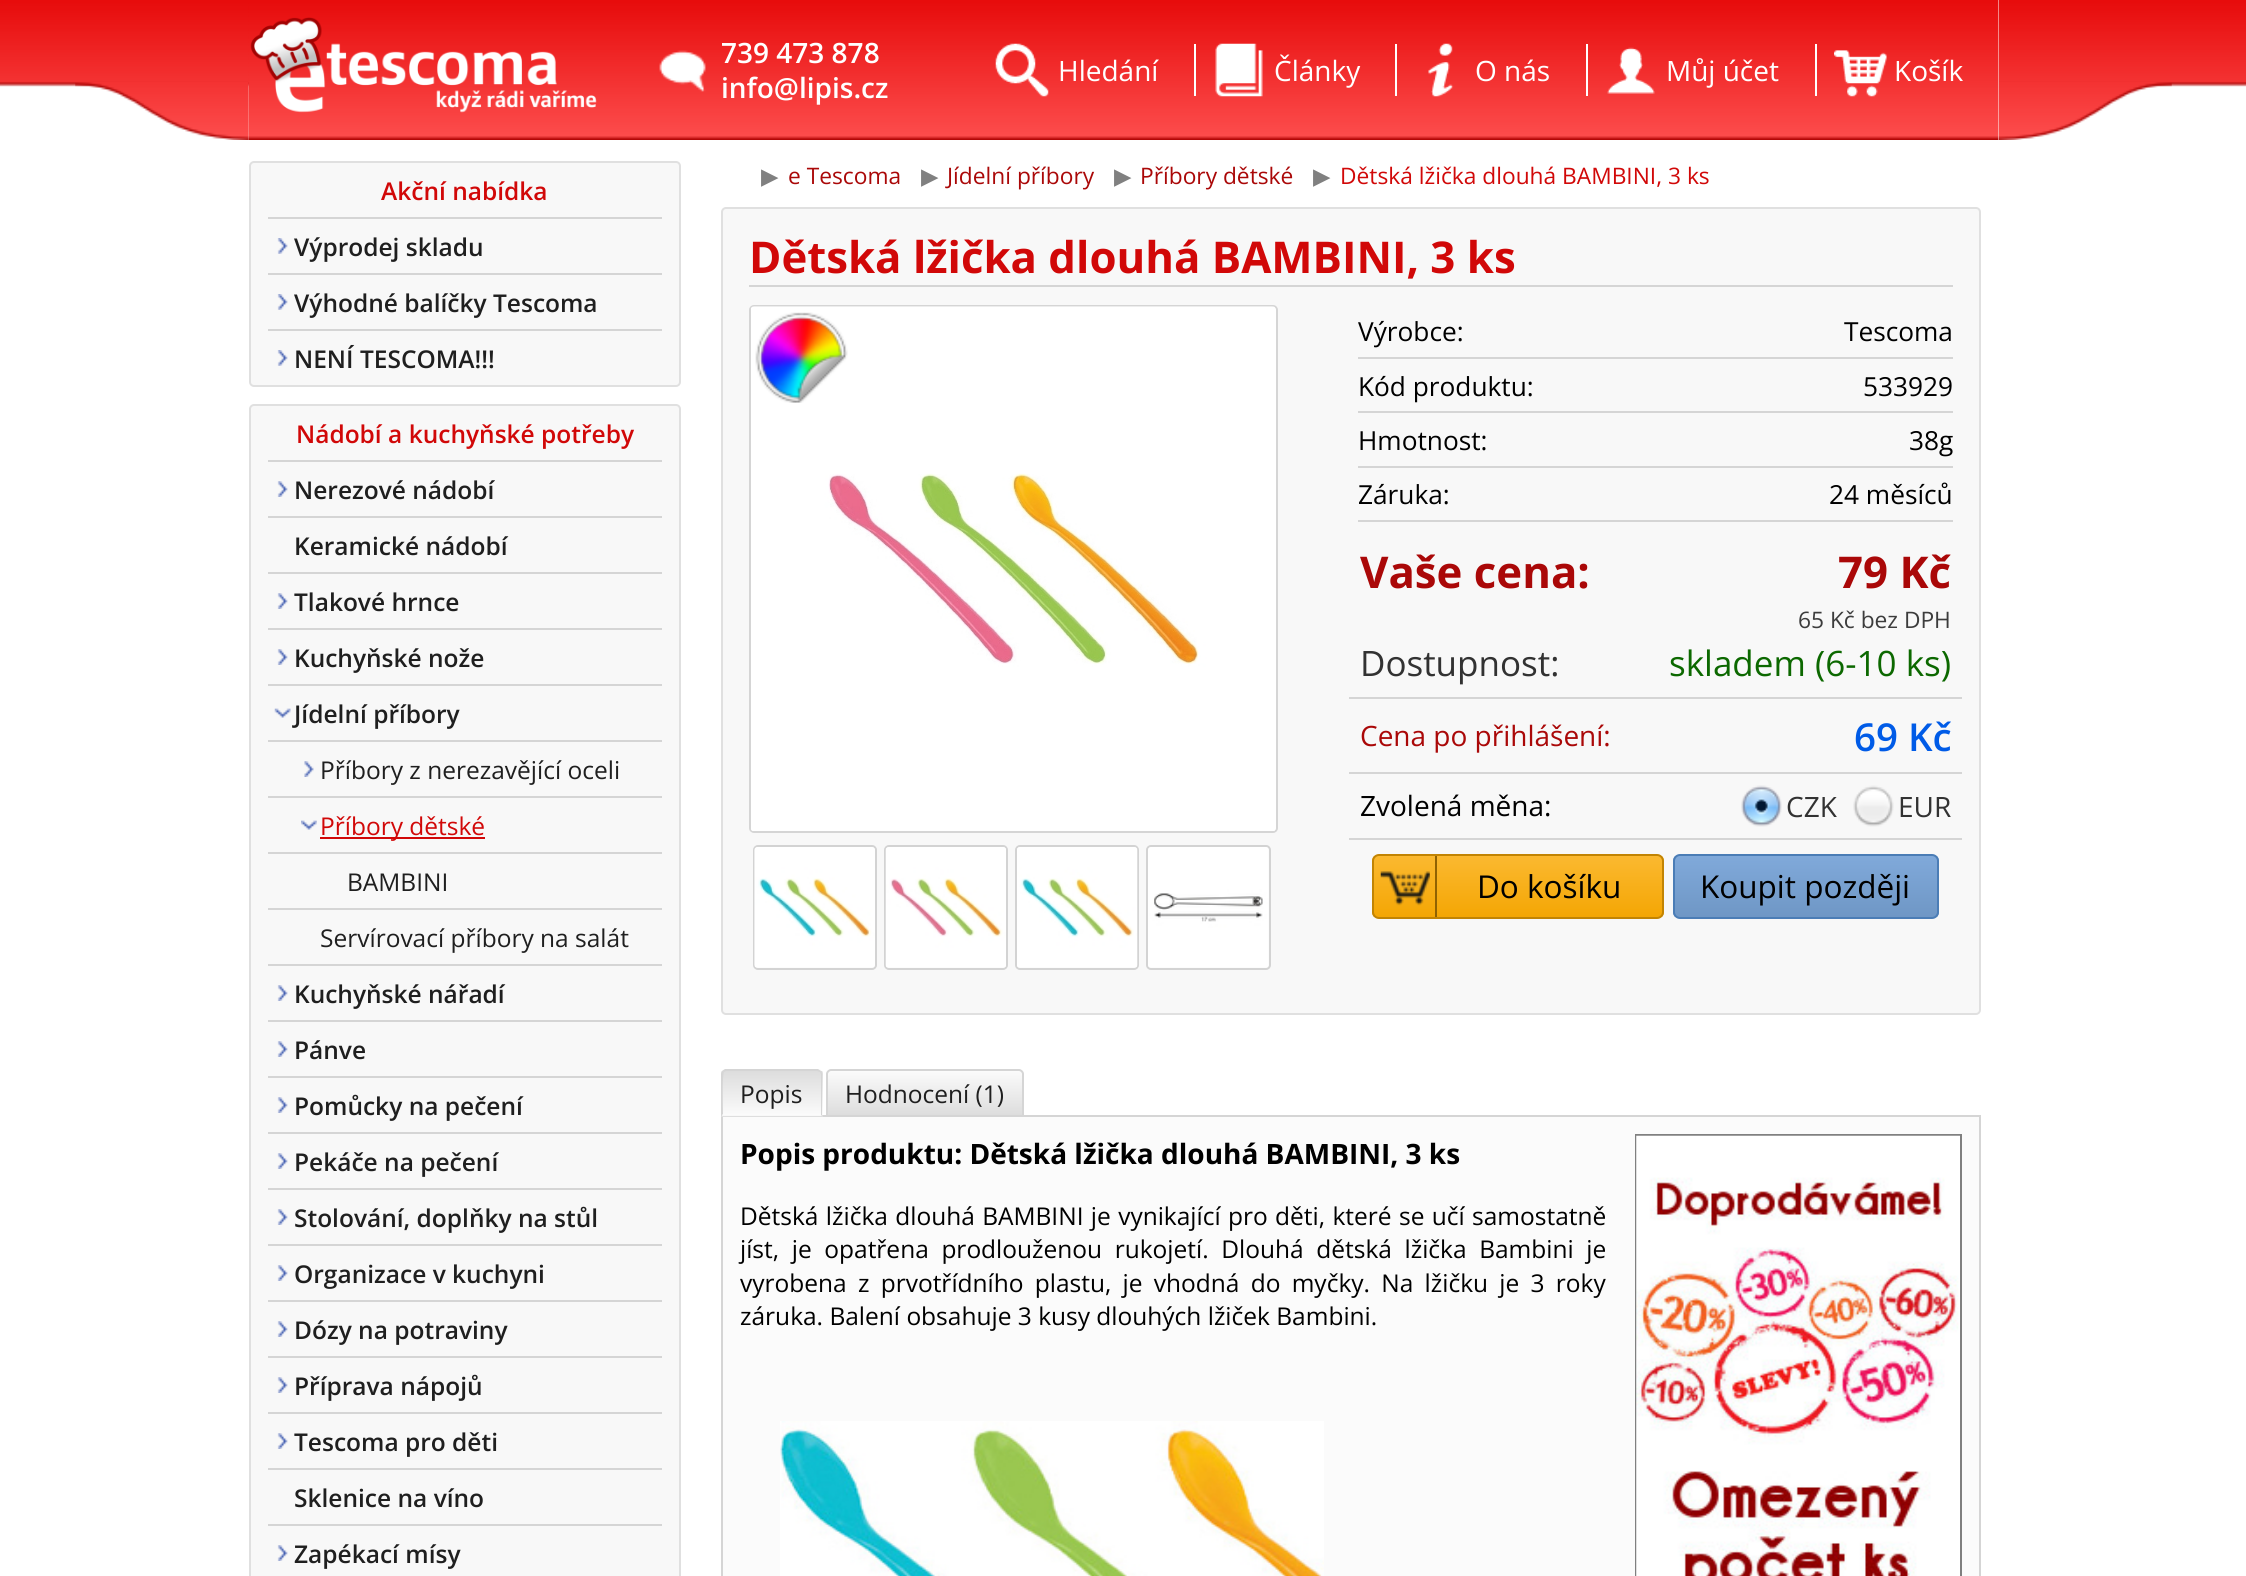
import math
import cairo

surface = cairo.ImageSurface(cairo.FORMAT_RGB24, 2246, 1576)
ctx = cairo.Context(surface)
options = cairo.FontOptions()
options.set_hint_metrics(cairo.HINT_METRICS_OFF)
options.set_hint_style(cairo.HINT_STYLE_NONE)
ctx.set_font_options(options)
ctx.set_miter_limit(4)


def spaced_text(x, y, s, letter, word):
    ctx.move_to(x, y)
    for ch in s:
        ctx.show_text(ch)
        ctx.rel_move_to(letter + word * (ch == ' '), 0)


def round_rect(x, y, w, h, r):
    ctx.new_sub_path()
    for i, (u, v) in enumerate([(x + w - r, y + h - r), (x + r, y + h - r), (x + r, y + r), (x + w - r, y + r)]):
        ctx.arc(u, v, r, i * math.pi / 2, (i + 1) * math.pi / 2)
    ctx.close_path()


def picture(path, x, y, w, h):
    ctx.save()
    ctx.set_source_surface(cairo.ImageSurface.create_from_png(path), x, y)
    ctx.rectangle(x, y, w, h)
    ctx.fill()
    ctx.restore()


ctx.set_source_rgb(1, 1, 1)
ctx.paint()
picture("img1.png", 0, 0, 2246, 87)
ctx.set_source_rgb(1, 1, 1)
ctx.rectangle(249, 0, 1750, 87)
ctx.fill()
picture("img2.png", 75, 82, 174, 58)
picture("img3.png", 1999, 82, 173, 58)
picture("img4.png", 248, 0, 1751, 140)
picture("img5.png", 250, 17, 347, 96)
picture("img6.png", 659, 50, 47, 42)
ctx.select_font_face("Open Sans SemiBold")
ctx.set_font_size(28)
ctx.move_to(721, 63)
ctx.show_text("739 473 878")
ctx.move_to(721, 98)
ctx.show_text("info@lipis.cz")
picture("img7.png", 995, 43, 54, 54)
ctx.rectangle(1194, 44, 2, 52)
ctx.fill()
ctx.select_font_face("Open Sans")
ctx.move_to(1058, 81)
ctx.show_text("Hledání")
picture("img8.png", 1215, 43, 48, 54)
ctx.rectangle(1395, 44, 2, 52)
ctx.fill()
ctx.move_to(1274, 81)
ctx.show_text("Články")
picture("img9.png", 1428, 43, 26, 54)
ctx.rectangle(1586, 44, 2, 52)
ctx.fill()
ctx.move_to(1475, 81)
ctx.show_text("O nás")
picture("img10.png", 1607, 47, 48, 47)
ctx.rectangle(1815, 44, 2, 52)
ctx.fill()
ctx.move_to(1666, 81)
ctx.show_text("Můj účet")
picture("img11.png", 1834, 50, 53, 47)
ctx.move_to(1894, 81)
ctx.show_text("Košík")
ctx.set_source_rgb(0.969, 0.969, 0.969)
round_rect(250, 162, 430, 224, 4)
ctx.fill_preserve()
ctx.set_source_rgb(0.878, 0.878, 0.878)
ctx.stroke()
ctx.select_font_face("Open Sans SemiBold")
ctx.set_font_size(24.5)
ctx.set_source_rgb(0.82, 0.035, 0.035)
ctx.move_to(381, 200)
ctx.show_text("Akční nabídka")
ctx.set_source_rgb(0.835, 0.835, 0.835)
ctx.rectangle(268, 217, 394, 2)
ctx.fill()
picture("img12.png", 277, 238, 11, 16)
ctx.set_source_rgb(0.122, 0.122, 0.122)
ctx.move_to(294, 256)
ctx.show_text("Výprodej skladu")
ctx.set_source_rgb(0.835, 0.835, 0.835)
ctx.rectangle(268, 273, 394, 2)
ctx.fill()
picture("img12.png", 277, 294, 11, 16)
ctx.set_source_rgb(0.122, 0.122, 0.122)
ctx.move_to(294, 312)
ctx.show_text("Výhodné balíčky Tescoma")
ctx.set_source_rgb(0.835, 0.835, 0.835)
ctx.rectangle(268, 329, 394, 2)
ctx.fill()
picture("img12.png", 277, 350, 11, 16)
ctx.set_source_rgb(0.122, 0.122, 0.122)
ctx.move_to(294, 368)
ctx.show_text("NENÍ TESCOMA!!!")
ctx.set_source_rgb(0.969, 0.969, 0.969)
round_rect(250, 405, 430, 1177, 4)
ctx.fill_preserve()
ctx.set_source_rgb(0.878, 0.878, 0.878)
ctx.stroke()
ctx.set_source_rgb(0.82, 0.035, 0.035)
ctx.move_to(296, 443)
ctx.show_text("Nádobí a kuchyňské potřeby")
ctx.set_source_rgb(0.835, 0.835, 0.835)
ctx.rectangle(268, 460, 394, 2)
ctx.fill()
picture("img13.png", 277, 481, 11, 16)
ctx.set_source_rgb(0.122, 0.122, 0.122)
ctx.move_to(294, 499)
ctx.show_text("Nerezové nádobí")
ctx.set_source_rgb(0.835, 0.835, 0.835)
ctx.rectangle(268, 516, 394, 2)
ctx.fill()
ctx.set_source_rgb(0.122, 0.122, 0.122)
ctx.move_to(294, 555)
ctx.show_text("Keramické nádobí")
ctx.set_source_rgb(0.835, 0.835, 0.835)
ctx.rectangle(268, 572, 394, 2)
ctx.fill()
picture("img13.png", 277, 593, 11, 16)
ctx.set_source_rgb(0.122, 0.122, 0.122)
ctx.move_to(294, 611)
ctx.show_text("Tlakové hrnce")
ctx.set_source_rgb(0.835, 0.835, 0.835)
ctx.rectangle(268, 628, 394, 2)
ctx.fill()
picture("img13.png", 277, 649, 11, 16)
ctx.set_source_rgb(0.122, 0.122, 0.122)
ctx.move_to(294, 667)
ctx.show_text("Kuchyňské nože")
ctx.set_source_rgb(0.835, 0.835, 0.835)
ctx.rectangle(268, 684, 394, 2)
ctx.fill()
picture("img14.png", 274, 708, 17, 10)
ctx.set_source_rgb(0.122, 0.122, 0.122)
ctx.move_to(294, 723)
ctx.show_text("Jídelní příbory")
ctx.set_source_rgb(0.835, 0.835, 0.835)
ctx.rectangle(268, 740, 394, 2)
ctx.fill()
picture("img15.png", 304, 761, 10, 16)
ctx.select_font_face("Open Sans")
ctx.set_source_rgb(0.122, 0.122, 0.122)
ctx.move_to(320, 779)
ctx.show_text("Příbory z nerezavějící oceli")
ctx.set_source_rgb(0.835, 0.835, 0.835)
ctx.rectangle(268, 796, 394, 2)
ctx.fill()
picture("img16.png", 301, 820, 16, 10)
ctx.set_source_rgb(0.82, 0.035, 0.035)
ctx.rectangle(320, 837, 165, 2)
ctx.fill()
ctx.move_to(320, 835)
ctx.show_text("Příbory dětské")
ctx.set_source_rgb(0.835, 0.835, 0.835)
ctx.rectangle(268, 852, 394, 2)
ctx.fill()
ctx.set_source_rgb(0.122, 0.122, 0.122)
ctx.move_to(347, 891)
ctx.show_text("BAMBINI")
ctx.set_source_rgb(0.835, 0.835, 0.835)
ctx.rectangle(268, 908, 394, 2)
ctx.fill()
ctx.set_source_rgb(0.122, 0.122, 0.122)
ctx.move_to(320, 947)
ctx.show_text("Servírovací příbory na salát")
ctx.set_source_rgb(0.835, 0.835, 0.835)
ctx.rectangle(268, 964, 394, 2)
ctx.fill()
picture("img13.png", 277, 985, 11, 16)
ctx.select_font_face("Open Sans SemiBold")
ctx.set_source_rgb(0.122, 0.122, 0.122)
ctx.move_to(294, 1003)
ctx.show_text("Kuchyňské nářadí")
ctx.set_source_rgb(0.835, 0.835, 0.835)
ctx.rectangle(268, 1020, 394, 2)
ctx.fill()
picture("img13.png", 277, 1041, 11, 16)
ctx.set_source_rgb(0.122, 0.122, 0.122)
ctx.move_to(294, 1059)
ctx.show_text("Pánve")
ctx.set_source_rgb(0.835, 0.835, 0.835)
ctx.rectangle(268, 1076, 394, 2)
ctx.fill()
picture("img13.png", 277, 1097, 11, 16)
ctx.set_source_rgb(0.122, 0.122, 0.122)
ctx.move_to(294, 1115)
ctx.show_text("Pomůcky na pečení")
ctx.set_source_rgb(0.835, 0.835, 0.835)
ctx.rectangle(268, 1132, 394, 2)
ctx.fill()
picture("img13.png", 277, 1153, 11, 16)
ctx.set_source_rgb(0.122, 0.122, 0.122)
ctx.move_to(294, 1171)
ctx.show_text("Pekáče na pečení")
ctx.set_source_rgb(0.835, 0.835, 0.835)
ctx.rectangle(268, 1188, 394, 2)
ctx.fill()
picture("img13.png", 277, 1209, 11, 16)
ctx.set_source_rgb(0.122, 0.122, 0.122)
ctx.move_to(294, 1227)
ctx.show_text("Stolování, doplňky na stůl")
ctx.set_source_rgb(0.835, 0.835, 0.835)
ctx.rectangle(268, 1244, 394, 2)
ctx.fill()
picture("img13.png", 277, 1265, 11, 16)
ctx.set_source_rgb(0.122, 0.122, 0.122)
ctx.move_to(294, 1283)
ctx.show_text("Organizace v kuchyni")
ctx.set_source_rgb(0.835, 0.835, 0.835)
ctx.rectangle(268, 1300, 394, 2)
ctx.fill()
picture("img13.png", 277, 1321, 11, 16)
ctx.set_source_rgb(0.122, 0.122, 0.122)
ctx.move_to(294, 1339)
ctx.show_text("Dózy na potraviny")
ctx.set_source_rgb(0.835, 0.835, 0.835)
ctx.rectangle(268, 1356, 394, 2)
ctx.fill()
picture("img13.png", 277, 1377, 11, 16)
ctx.set_source_rgb(0.122, 0.122, 0.122)
ctx.move_to(294, 1395)
ctx.show_text("Příprava nápojů")
ctx.set_source_rgb(0.835, 0.835, 0.835)
ctx.rectangle(268, 1412, 394, 2)
ctx.fill()
picture("img13.png", 277, 1433, 11, 16)
ctx.set_source_rgb(0.122, 0.122, 0.122)
ctx.move_to(294, 1451)
ctx.show_text("Tescoma pro děti")
ctx.set_source_rgb(0.835, 0.835, 0.835)
ctx.rectangle(268, 1468, 394, 2)
ctx.fill()
ctx.set_source_rgb(0.122, 0.122, 0.122)
ctx.move_to(294, 1507)
ctx.show_text("Sklenice na víno")
ctx.set_source_rgb(0.835, 0.835, 0.835)
ctx.rectangle(268, 1524, 394, 2)
ctx.fill()
picture("img13.png", 277, 1545, 11, 16)
ctx.set_source_rgb(0.122, 0.122, 0.122)
ctx.move_to(294, 1563)
ctx.show_text("Zapékací mísy")
ctx.select_font_face("DejaVu Sans")
ctx.set_font_size(22.75)
ctx.set_source_rgb(0.502, 0.502, 0.502)
ctx.move_to(761, 184)
ctx.show_text("▶")
ctx.select_font_face("Open Sans")
ctx.set_source_rgb(0.667, 0.035, 0.035)
ctx.move_to(788, 184)
ctx.show_text("e Tescoma")
ctx.select_font_face("DejaVu Sans")
ctx.set_source_rgb(0.502, 0.502, 0.502)
ctx.move_to(921, 184)
ctx.show_text("▶")
ctx.select_font_face("Open Sans")
ctx.set_source_rgb(0.667, 0.035, 0.035)
ctx.move_to(947, 184)
ctx.show_text("Jídelní příbory")
ctx.select_font_face("DejaVu Sans")
ctx.set_source_rgb(0.502, 0.502, 0.502)
ctx.move_to(1114, 184)
ctx.show_text("▶")
ctx.select_font_face("Open Sans")
ctx.set_source_rgb(0.667, 0.035, 0.035)
ctx.move_to(1140, 184)
ctx.show_text("Příbory dětské")
ctx.select_font_face("DejaVu Sans")
ctx.set_source_rgb(0.502, 0.502, 0.502)
ctx.move_to(1313, 184)
ctx.show_text("▶")
ctx.select_font_face("Open Sans")
ctx.set_source_rgb(0.82, 0.035, 0.035)
ctx.move_to(1340, 184)
ctx.show_text("Dětská lžička dlouhá BAMBINI, 3 ks")
ctx.set_source_rgb(0.969, 0.969, 0.969)
round_rect(722, 208, 1258, 806, 4)
ctx.fill_preserve()
ctx.set_source_rgb(0.878, 0.878, 0.878)
ctx.stroke()
ctx.set_source_rgb(0.835, 0.835, 0.835)
ctx.rectangle(749, 285, 1204, 2)
ctx.fill()
ctx.select_font_face("Open Sans", cairo.FONT_SLANT_NORMAL, cairo.FONT_WEIGHT_BOLD)
ctx.set_font_size(43.75)
ctx.set_source_rgb(0.82, 0.035, 0.035)
ctx.move_to(749, 273)
ctx.show_text("Dětská lžička dlouhá BAMBINI, 3 ks")
ctx.set_source_rgb(1, 1, 1)
round_rect(750, 306, 527, 526, 4)
ctx.fill_preserve()
ctx.set_source_rgb(0.835, 0.835, 0.835)
ctx.stroke()
picture("img17.png", 751, 306, 525, 525)
picture("img18.png", 755, 312, 93, 91)
round_rect(754, 846, 122, 123, 4)
ctx.set_source_rgb(0.827, 0.827, 0.827)
ctx.stroke()
picture("img19.png", 754, 847, 121, 121)
round_rect(885, 846, 122, 123, 4)
ctx.stroke()
picture("img20.png", 885, 847, 121, 121)
round_rect(1016, 846, 122, 123, 4)
ctx.stroke()
picture("img21.png", 1017, 847, 121, 121)
round_rect(1147, 846, 123, 123, 4)
ctx.stroke()
picture("img22.png", 1148, 847, 121, 121)
ctx.set_source_rgb(0.835, 0.835, 0.835)
ctx.rectangle(1358, 357, 595, 2)
ctx.fill()
ctx.select_font_face("Open Sans")
ctx.set_font_size(26.25)
ctx.set_source_rgb(0, 0, 0)
ctx.move_to(1358, 341)
ctx.show_text("Výrobce:")
ctx.move_to(1844, 341)
ctx.show_text("Tescoma")
ctx.set_source_rgb(0.835, 0.835, 0.835)
ctx.rectangle(1358, 411, 595, 2)
ctx.fill()
ctx.set_source_rgb(0, 0, 0)
ctx.move_to(1358, 396)
ctx.show_text("Kód produktu:")
ctx.move_to(1863, 396)
ctx.show_text("533929")
ctx.set_source_rgb(0.835, 0.835, 0.835)
ctx.rectangle(1358, 466, 595, 2)
ctx.fill()
ctx.set_source_rgb(0, 0, 0)
ctx.move_to(1358, 450)
ctx.show_text("Hmotnost:")
ctx.move_to(1909, 450)
ctx.show_text("38g")
ctx.set_source_rgb(0.835, 0.835, 0.835)
ctx.rectangle(1358, 520, 595, 2)
ctx.fill()
ctx.set_source_rgb(0, 0, 0)
ctx.move_to(1358, 504)
ctx.show_text("Záruka:")
ctx.move_to(1829, 504)
ctx.show_text("24 měsíců")
ctx.set_source_rgb(0.835, 0.835, 0.835)
ctx.rectangle(1349, 697, 613, 2)
ctx.fill()
ctx.select_font_face("Open Sans", cairo.FONT_SLANT_NORMAL, cairo.FONT_WEIGHT_BOLD)
ctx.set_font_size(43.75)
ctx.set_source_rgb(0.667, 0.035, 0.035)
ctx.move_to(1360, 588)
ctx.show_text("Vaše cena:")
ctx.move_to(1838, 588)
ctx.show_text("79 Kč")
ctx.select_font_face("Open Sans")
ctx.set_font_size(22.75)
ctx.set_source_rgb(0.235, 0.235, 0.235)
ctx.move_to(1798, 628)
ctx.show_text("65 Kč bez DPH")
ctx.set_font_size(35)
ctx.set_source_rgb(0.196, 0.196, 0.196)
ctx.move_to(1360, 676)
ctx.show_text("Dostupnost:")
ctx.set_source_rgb(0.047, 0.408, 0)
ctx.move_to(1669, 676)
ctx.show_text("skladem (6-10 ks)")
ctx.set_source_rgb(0.835, 0.835, 0.835)
ctx.rectangle(1349, 772, 613, 2)
ctx.fill()
ctx.set_font_size(28)
ctx.set_source_rgb(0.667, 0.035, 0.035)
ctx.move_to(1360, 746)
ctx.show_text("Cena po přihlášení:")
ctx.select_font_face("Open Sans SemiBold")
ctx.set_font_size(38.5)
ctx.set_source_rgb(0, 0.357, 0.906)
ctx.move_to(1854, 751)
ctx.show_text("69 Kč")
ctx.set_source_rgb(0.835, 0.835, 0.835)
ctx.rectangle(1349, 838, 613, 2)
ctx.fill()
ctx.select_font_face("Open Sans")
ctx.set_font_size(28)
ctx.set_source_rgb(0, 0, 0)
ctx.move_to(1360, 816)
ctx.show_text("Zvolená měna:")
picture("img23.png", 1741, 785, 41, 42)
ctx.set_source_rgb(0.196, 0.196, 0.196)
ctx.move_to(1786, 817)
ctx.show_text("CZK")
picture("img24.png", 1853, 785, 41, 42)
ctx.move_to(1898, 817)
ctx.show_text("EUR")
ctx.save()
round_rect(1372, 854, 292, 65, 7)
ctx.clip()
gradient = cairo.LinearGradient(1518, 856, 1518, 917)
gradient.add_color_stop_rgba(0, 0.984, 0.725, 0.188, 1)
gradient.add_color_stop_rgba(1, 0.957, 0.651, 0.016, 1)
ctx.set_source(gradient)
ctx.rectangle(1372, 856, 292, 61)
ctx.fill()
ctx.restore()
round_rect(1373, 855, 290, 63, 6)
ctx.set_source_rgb(0.761, 0.518, 0.012)
ctx.stroke()
picture("img25.png", 1380, 871, 50, 35)
ctx.set_source_rgb(0.565, 0.384, 0.008)
ctx.rectangle(1435, 856, 2, 61)
ctx.fill()
ctx.set_font_size(31.5)
ctx.set_source_rgb(0, 0, 0)
ctx.move_to(1477, 898)
ctx.show_text("Do košíku")
ctx.save()
round_rect(1673, 854, 266, 65, 7)
ctx.clip()
gradient = cairo.LinearGradient(1806, 856, 1806, 917)
gradient.add_color_stop_rgba(0, 0.502, 0.663, 0.855, 1)
gradient.add_color_stop_rgba(1, 0.435, 0.592, 0.773, 1)
ctx.set_source(gradient)
ctx.rectangle(1673, 856, 266, 61)
ctx.fill()
ctx.restore()
round_rect(1674, 855, 264, 63, 6)
ctx.set_source_rgb(0.294, 0.49, 0.714)
ctx.stroke()
ctx.set_source_rgb(0, 0, 0)
ctx.move_to(1700, 898)
ctx.show_text("Koupit později")
ctx.save()
ctx.new_path()
ctx.move_to(726, 1069)
ctx.line_to(818, 1069)
ctx.curve_to(821, 1069, 823, 1071, 823, 1074)
ctx.line_to(823, 1117)
ctx.line_to(721, 1117)
ctx.line_to(721, 1074)
ctx.curve_to(721, 1071, 723, 1069, 726, 1069)
ctx.close_path()
ctx.clip()
gradient = cairo.LinearGradient(772, 1027, 772, 1071)
gradient.add_color_stop_rgba(0, 0.867, 0.867, 0.867, 1)
gradient.add_color_stop_rgba(1, 0.984, 0.984, 0.984, 1)
ctx.set_source(gradient)
ctx.rectangle(721, 1069, 102, 2)
ctx.fill()
gradient = cairo.LinearGradient(772, 1071, 772, 1115)
gradient.add_color_stop_rgba(0, 0.867, 0.867, 0.867, 1)
gradient.add_color_stop_rgba(1, 0.984, 0.984, 0.984, 1)
ctx.set_source(gradient)
ctx.rectangle(721, 1071, 102, 44)
ctx.fill()
ctx.restore()
ctx.set_source_rgb(0.984, 0.984, 0.984)
ctx.rectangle(722, 1116, 1258, 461)
ctx.fill_preserve()
ctx.set_source_rgb(0.835, 0.835, 0.835)
ctx.stroke()
gradient = cairo.LinearGradient(772, 1115, 772, 1159)
gradient.add_color_stop_rgba(0, 0.867, 0.867, 0.867, 1)
gradient.add_color_stop_rgba(1, 0.984, 0.984, 0.984, 1)
ctx.set_source(gradient)
ctx.rectangle(721, 1115, 102, 2)
ctx.fill()
ctx.set_source_rgb(0.835, 0.835, 0.835)
ctx.new_path()
ctx.move_to(726, 1071)
ctx.line_to(724, 1072)
ctx.line_to(722, 1071)
ctx.line_to(725, 1069)
ctx.line_to(818, 1069)
ctx.line_to(821, 1071)
ctx.line_to(820, 1072)
ctx.line_to(817, 1071)
ctx.close_path()
ctx.fill()
ctx.new_path()
ctx.move_to(821, 1071)
ctx.curve_to(822, 1072, 822, 1073, 822, 1074)
ctx.line_to(822, 1116)
ctx.line_to(821, 1115)
ctx.line_to(821, 1074)
ctx.line_to(820, 1072)
ctx.close_path()
ctx.fill()
ctx.set_source_rgb(0.969, 0.969, 0.969)
ctx.new_path()
ctx.move_to(822, 1116)
ctx.line_to(821, 1115)
ctx.line_to(723, 1115)
ctx.line_to(723, 1114)
ctx.line_to(722, 1116)
ctx.close_path()
ctx.fill()
ctx.set_source_rgb(0.835, 0.835, 0.835)
ctx.new_path()
ctx.move_to(721, 1074)
ctx.line_to(721, 1116)
ctx.line_to(723, 1114)
ctx.curve_to(723, 1109, 722, 1074, 724, 1072)
ctx.line_to(722, 1071)
ctx.close_path()
ctx.fill()
ctx.set_font_size(24.5)
ctx.set_source_rgb(0.122, 0.122, 0.122)
ctx.move_to(740, 1103)
ctx.show_text("Popis")
ctx.save()
ctx.new_path()
ctx.move_to(831, 1069)
ctx.line_to(1019, 1069)
ctx.curve_to(1022, 1069, 1024, 1071, 1024, 1074)
ctx.line_to(1024, 1117)
ctx.line_to(826, 1117)
ctx.line_to(826, 1074)
ctx.curve_to(826, 1071, 828, 1069, 831, 1069)
ctx.close_path()
ctx.clip()
gradient = cairo.LinearGradient(925, 1071, 925, 1115)
gradient.add_color_stop_rgba(0, 0.984, 0.984, 0.984, 1)
gradient.add_color_stop_rgba(1, 0.867, 0.867, 0.867, 1)
ctx.set_source(gradient)
ctx.rectangle(826, 1071, 198, 44)
ctx.fill()
ctx.restore()
ctx.new_path()
ctx.move_to(831, 1070)
ctx.line_to(1019, 1070)
ctx.curve_to(1021, 1070, 1023, 1072, 1023, 1074)
ctx.line_to(1023, 1116)
ctx.line_to(827, 1116)
ctx.line_to(827, 1074)
ctx.curve_to(827, 1072, 829, 1070, 831, 1070)
ctx.close_path()
ctx.set_source_rgb(0.835, 0.835, 0.835)
ctx.stroke()
ctx.set_source_rgb(0.122, 0.122, 0.122)
ctx.move_to(845, 1103)
ctx.show_text("Hodnocení (1)")
ctx.select_font_face("Open Sans", cairo.FONT_SLANT_NORMAL, cairo.FONT_WEIGHT_BOLD)
ctx.set_font_size(28)
ctx.set_source_rgb(0, 0, 0)
ctx.move_to(740, 1164)
ctx.show_text("Popis produktu: Dětská lžička dlouhá BAMBINI, 3 ks")
ctx.select_font_face("Open Sans")
ctx.set_font_size(24.5)
spaced_text(740, 1225, "Dětská lžička dlouhá BAMBINI je vynikající pro děti, které se učí samostatně", 0, 1)
spaced_text(740, 1258, "jíst, je opatřena prodlouženou rukojetí. Dlouhá dětská lžička Bambini je", 0, 6.25)
spaced_text(740, 1292, "vyrobena z prvotřídního plastu, je vhodná do myčky. Na lžičku je 3 roky", 0, 4.9)
ctx.move_to(740, 1325)
ctx.show_text("záruka. Balení obsahuje 3 kusy dlouhých lžiček Bambini.")
picture("img26.png", 780, 1421, 544, 155)
ctx.rectangle(1636, 1135, 325, 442)
ctx.set_source_rgb(0.502, 0.502, 0.502)
ctx.stroke()
picture("img27.png", 1636, 1135, 324, 441)
surface.write_to_png("page.png")
